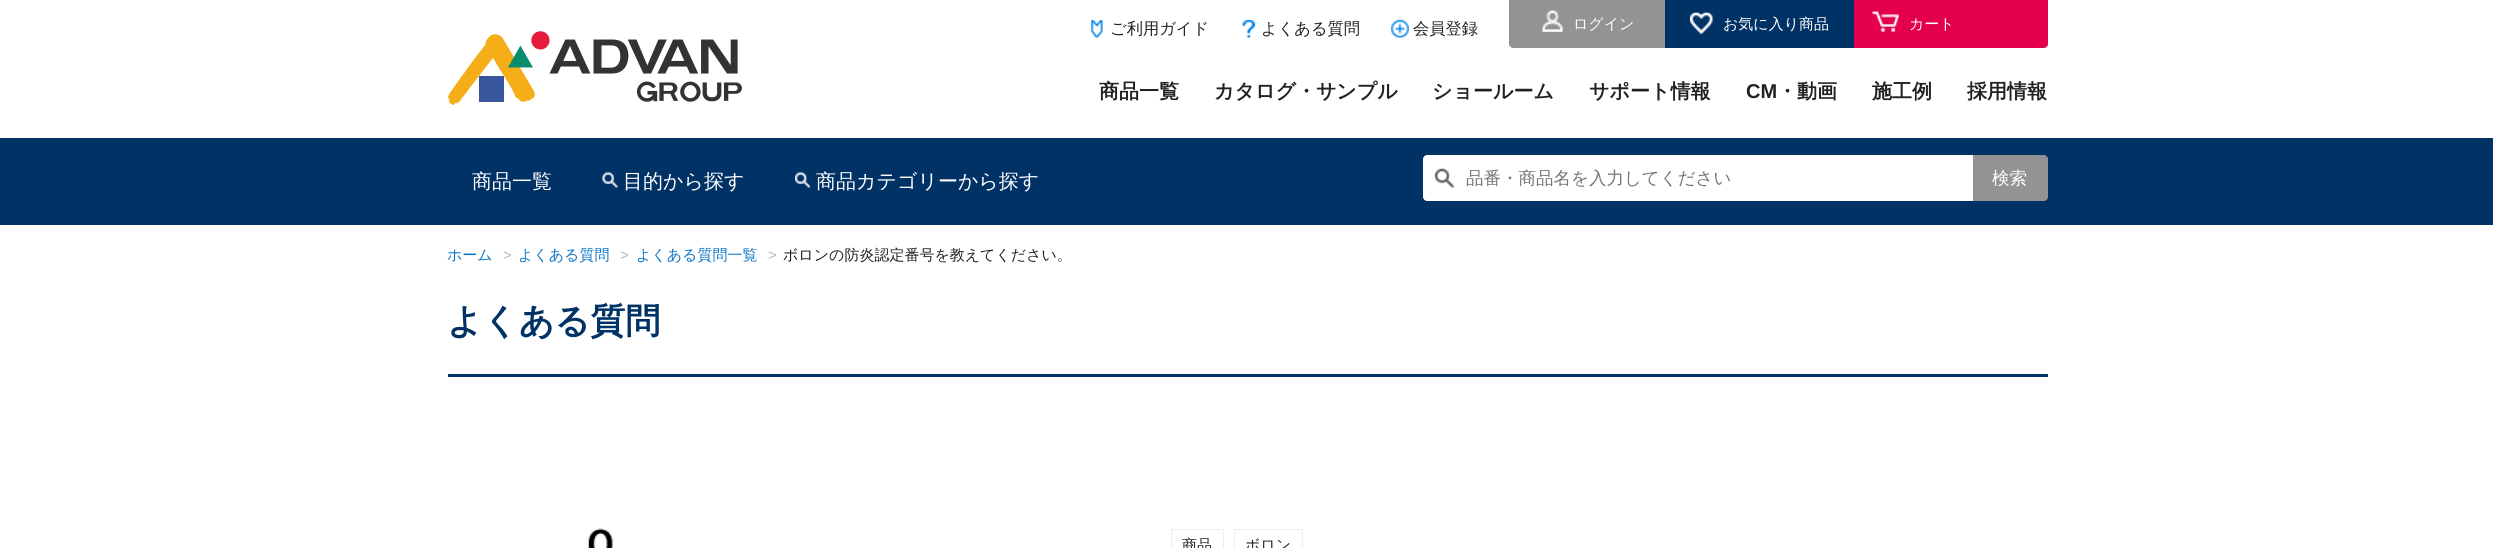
import math
import cairo

surface = cairo.ImageSurface(cairo.FORMAT_RGB24, 2493, 548)
ctx = cairo.Context(surface)
options = cairo.FontOptions()
options.set_hint_metrics(cairo.HINT_METRICS_OFF)
options.set_hint_style(cairo.HINT_STYLE_NONE)
ctx.set_font_options(options)
ctx.set_miter_limit(4)


def picture(path, x, y, w, h):
    ctx.save()
    ctx.set_source_surface(cairo.ImageSurface.create_from_png(path), x, y)
    ctx.rectangle(x, y, w, h)
    ctx.fill()
    ctx.restore()


ctx.set_source_rgb(1, 1, 1)
ctx.paint()
picture("img1.png", 448, 31, 294, 74)
picture("img2.png", 1091, 20, 12, 18)
ctx.select_font_face("WenQuanYi Zen Hei Medium")
ctx.set_font_size(16.25)
ctx.set_source_rgb(0.133, 0.133, 0.133)
ctx.move_to(1110, 34)
ctx.show_text("ご利用ガイド")
picture("img3.png", 1242, 20, 14, 18)
ctx.move_to(1261, 34)
ctx.show_text("よくある質問")
picture("img4.png", 1391, 20, 18, 18)
ctx.move_to(1413, 34)
ctx.show_text("会員登録")
ctx.set_source_rgb(0.576, 0.576, 0.576)
ctx.new_path()
ctx.move_to(1509, 0)
ctx.line_to(1665, 0)
ctx.line_to(1665, 48)
ctx.line_to(1513, 48)
ctx.curve_to(1511, 48, 1509, 46, 1509, 44)
ctx.close_path()
ctx.fill()
picture("img5.png", 1542, 10, 21, 22)
ctx.set_font_size(15)
ctx.set_source_rgb(1, 1, 1)
ctx.move_to(1573, 29)
ctx.show_text("ログイン")
ctx.set_source_rgb(0, 0.196, 0.396)
ctx.rectangle(1665, 0, 189, 48)
ctx.fill()
picture("img6.png", 1690, 12, 23, 22)
ctx.set_source_rgb(1, 1, 1)
ctx.move_to(1723, 29)
ctx.show_text("お気に入り商品")
ctx.set_source_rgb(0.894, 0, 0.31)
ctx.new_path()
ctx.move_to(1854, 0)
ctx.line_to(2048, 0)
ctx.line_to(2048, 44)
ctx.curve_to(2048, 46, 2046, 48, 2044, 48)
ctx.line_to(1854, 48)
ctx.close_path()
ctx.fill()
picture("img7.png", 1872, 11, 27, 21)
ctx.set_source_rgb(1, 1, 1)
ctx.move_to(1909, 29)
ctx.show_text("カート")
ctx.select_font_face("WenQuanYi Zen Hei", cairo.FONT_SLANT_NORMAL, cairo.FONT_WEIGHT_BOLD)
ctx.set_font_size(20)
ctx.set_source_rgb(0.133, 0.133, 0.133)
ctx.move_to(1099, 98)
ctx.show_text("商品一覧")
ctx.move_to(1214, 98)
ctx.show_text("カタログ・サンプル")
ctx.move_to(1432, 98)
ctx.show_text("ショールーム")
ctx.move_to(1589, 98)
ctx.show_text("サポート情報")
ctx.select_font_face("Liberation Sans", cairo.FONT_SLANT_NORMAL, cairo.FONT_WEIGHT_BOLD)
ctx.move_to(1746, 98)
ctx.show_text("CM")
ctx.select_font_face("WenQuanYi Zen Hei", cairo.FONT_SLANT_NORMAL, cairo.FONT_WEIGHT_BOLD)
ctx.move_to(1777, 98)
ctx.show_text("・動画")
ctx.move_to(1872, 98)
ctx.show_text("施工例")
ctx.move_to(1967, 98)
ctx.show_text("採用情報")
ctx.set_source_rgb(0, 0.196, 0.4)
ctx.rectangle(0, 138, 2493, 87)
ctx.fill()
ctx.select_font_face("WenQuanYi Zen Hei Medium")
ctx.set_source_rgb(1, 1, 1)
ctx.move_to(472, 188)
ctx.show_text("商品一覧")
picture("img8.png", 602, 172, 16, 16)
ctx.move_to(623, 188)
ctx.show_text("目的から探す")
picture("img9.png", 795, 172, 15, 16)
ctx.move_to(816, 188)
ctx.show_text("商品カテゴリーから探す")
ctx.new_path()
ctx.move_to(1427, 155)
ctx.line_to(1973, 155)
ctx.line_to(1973, 201)
ctx.line_to(1427, 201)
ctx.curve_to(1425, 201, 1423, 199, 1423, 197)
ctx.line_to(1423, 159)
ctx.curve_to(1423, 157, 1425, 155, 1427, 155)
ctx.close_path()
ctx.fill()
picture("img10.png", 1435, 168, 19, 20)
ctx.set_font_size(17.5)
ctx.set_source_rgb(0.459, 0.459, 0.459)
ctx.move_to(1466, 184)
ctx.show_text("品番・商品名を入力してください")
ctx.set_source_rgb(0.576, 0.576, 0.576)
ctx.new_path()
ctx.move_to(1973, 155)
ctx.line_to(2044, 155)
ctx.curve_to(2046, 155, 2048, 157, 2048, 159)
ctx.line_to(2048, 197)
ctx.curve_to(2048, 199, 2046, 201, 2044, 201)
ctx.line_to(1973, 201)
ctx.close_path()
ctx.fill()
ctx.set_source_rgb(1, 1, 1)
ctx.move_to(1992, 184)
ctx.show_text("検索")
ctx.set_font_size(15)
ctx.set_source_rgb(0.047, 0.463, 0.78)
ctx.move_to(447, 260)
ctx.show_text("ホーム")
ctx.select_font_face("Liberation Sans")
ctx.set_source_rgb(0.714, 0.714, 0.714)
ctx.move_to(503, 260)
ctx.show_text(">")
ctx.select_font_face("WenQuanYi Zen Hei Medium")
ctx.set_source_rgb(0.047, 0.463, 0.78)
ctx.move_to(518, 260)
ctx.show_text("よくある質問")
ctx.select_font_face("Liberation Sans")
ctx.set_source_rgb(0.714, 0.714, 0.714)
ctx.move_to(620, 260)
ctx.show_text(">")
ctx.select_font_face("WenQuanYi Zen Hei Medium")
ctx.set_source_rgb(0.047, 0.463, 0.78)
ctx.move_to(636, 260)
ctx.show_text("よくある質問一覧")
ctx.select_font_face("Liberation Sans")
ctx.set_source_rgb(0.714, 0.714, 0.714)
ctx.move_to(768, 260)
ctx.show_text(">")
ctx.select_font_face("WenQuanYi Zen Hei Medium")
ctx.set_source_rgb(0.133, 0.133, 0.133)
ctx.move_to(783, 260)
ctx.show_text("ボロンの防炎認定番号を教えてください。")
ctx.set_source_rgb(0, 0.196, 0.396)
ctx.rectangle(448, 374, 1600, 3)
ctx.fill()
ctx.select_font_face("WenQuanYi Zen Hei", cairo.FONT_SLANT_NORMAL, cairo.FONT_WEIGHT_BOLD)
ctx.set_font_size(35)
ctx.move_to(447, 333)
ctx.show_text("よくある質問")
picture("img11.png", 588, 528, 25, 20)
ctx.rectangle(1171.5, 529.5, 52, 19)
ctx.set_source_rgb(0.933, 0.933, 0.933)
ctx.set_line_width(1)
ctx.stroke()
ctx.select_font_face("WenQuanYi Zen Hei Medium")
ctx.set_font_size(15)
ctx.set_source_rgb(0.133, 0.133, 0.133)
ctx.move_to(1182, 550)
ctx.show_text("商品")
ctx.rectangle(1234.5, 529.5, 68, 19)
ctx.set_source_rgb(0.933, 0.933, 0.933)
ctx.stroke()
ctx.set_source_rgb(0.133, 0.133, 0.133)
ctx.move_to(1245, 550)
ctx.show_text("ボロン")
surface.write_to_png("page.png")
